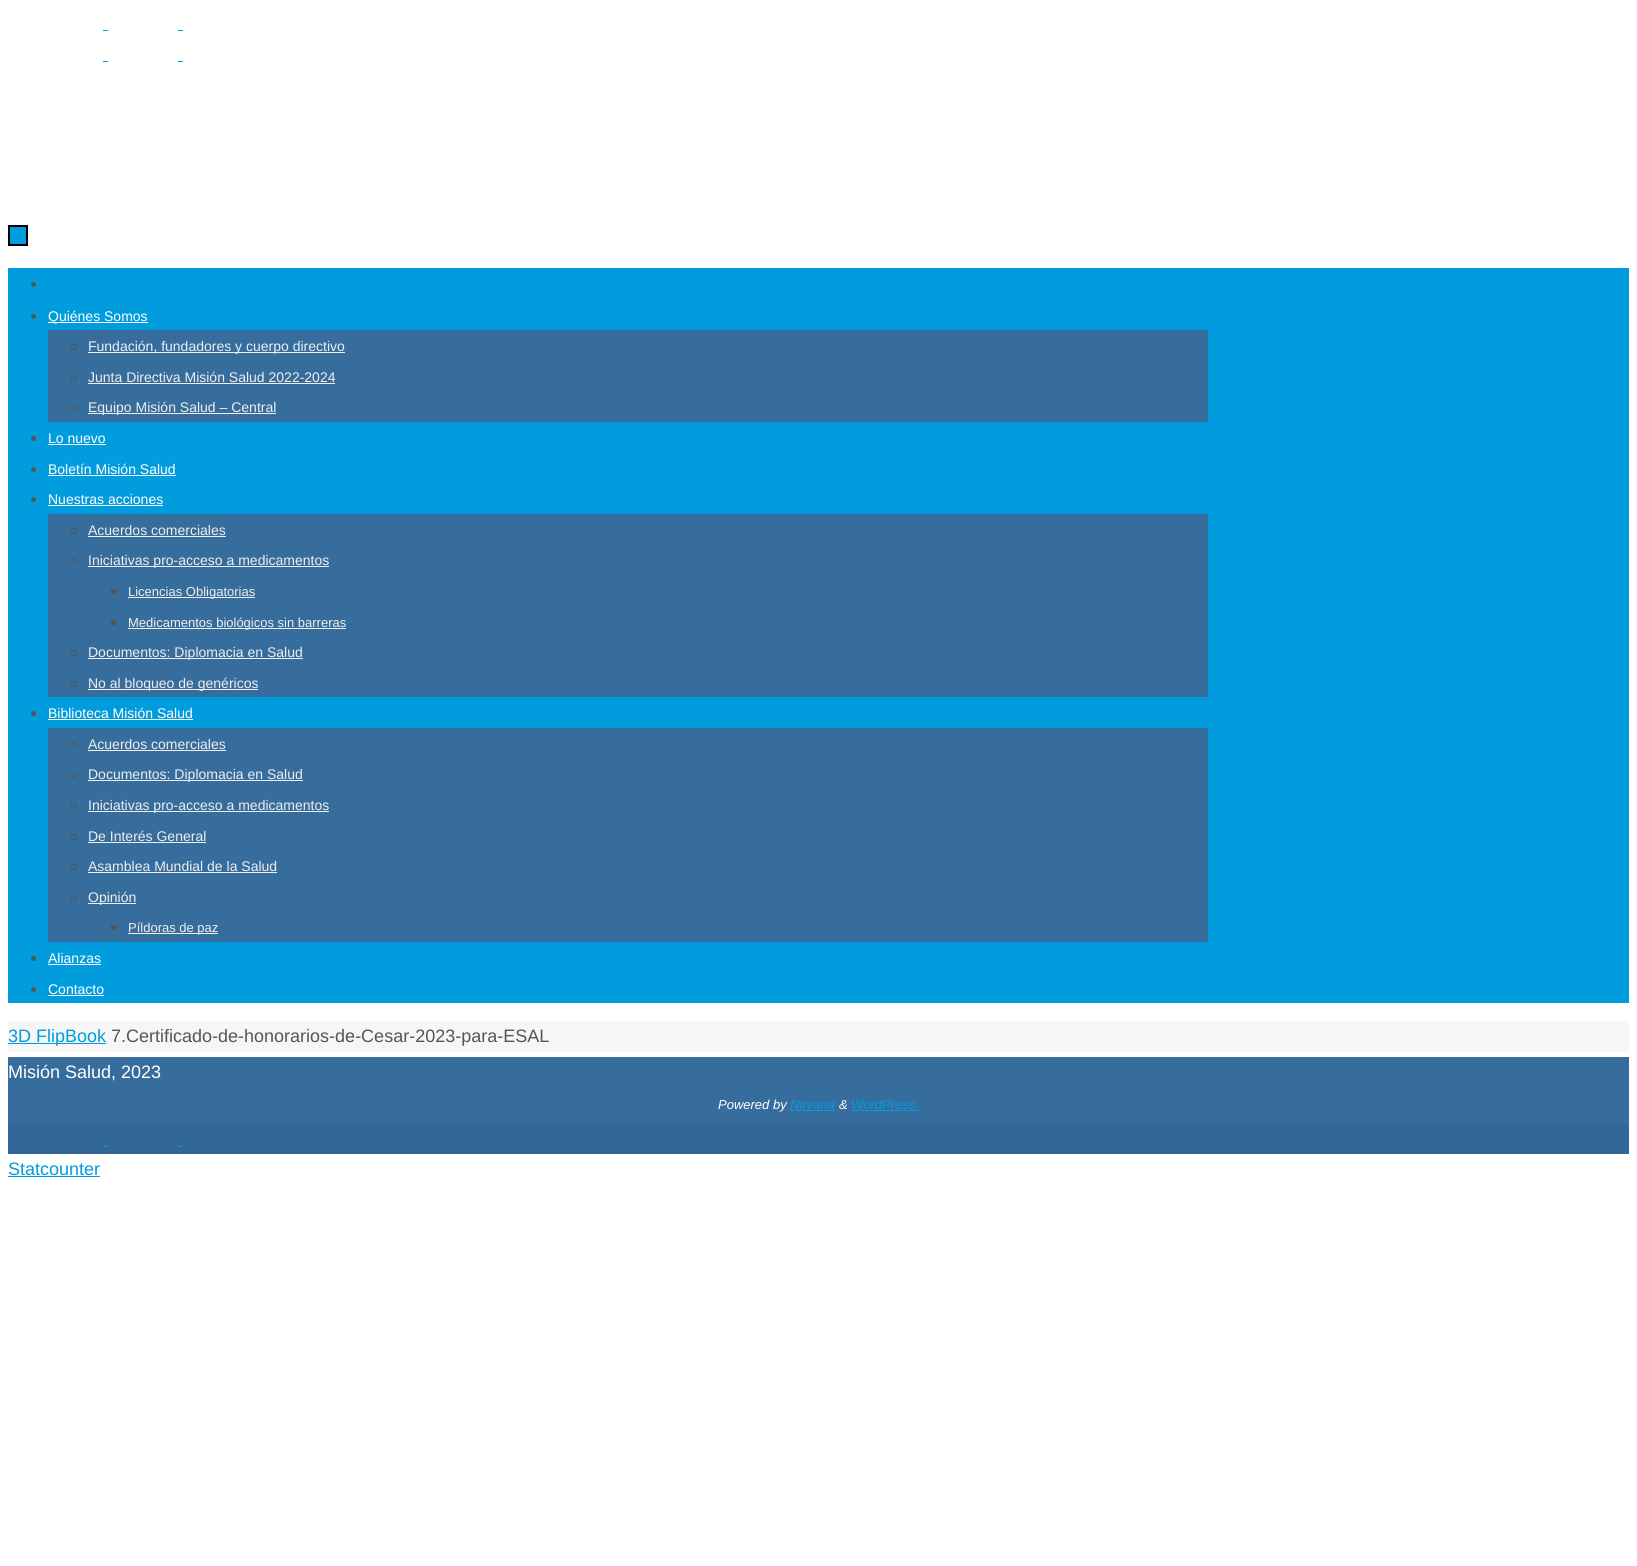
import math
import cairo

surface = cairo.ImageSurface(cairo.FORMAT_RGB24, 1637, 1566)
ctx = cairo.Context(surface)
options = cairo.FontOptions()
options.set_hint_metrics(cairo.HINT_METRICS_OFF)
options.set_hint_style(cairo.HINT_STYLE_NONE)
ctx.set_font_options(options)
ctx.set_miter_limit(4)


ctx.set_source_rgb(1, 1, 1)
ctx.paint()
ctx.set_source_rgb(0, 0.612, 0.871)
ctx.rectangle(103, 30, 5, 1)
ctx.fill()
ctx.rectangle(178, 30, 5, 1)
ctx.fill()
ctx.rectangle(103, 61, 5, 1)
ctx.fill()
ctx.rectangle(178, 61, 5, 1)
ctx.fill()
ctx.rectangle(9, 226, 18, 19)
ctx.fill_preserve()
ctx.set_source_rgb(0, 0, 0)
ctx.stroke()
ctx.set_source_rgb(0, 0.612, 0.871)
ctx.rectangle(8, 268, 1621, 735)
ctx.fill()
ctx.set_source_rgb(0.333, 0.333, 0.333)
ctx.arc(33.5, 284.5, 2.5, 0, 2 * math.pi)
ctx.fill()
ctx.arc(33.5, 316.5, 2.5, 0, 2 * math.pi)
ctx.fill()
ctx.set_source_rgb(1, 1, 1)
ctx.rectangle(48, 322, 100, 1)
ctx.fill()
ctx.select_font_face("Liberation Sans")
ctx.set_font_size(14)
ctx.move_to(48, 321)
ctx.show_text("Quiénes Somos")
ctx.set_source_rgb(0.212, 0.427, 0.616)
ctx.rectangle(48, 330, 1160, 92)
ctx.fill()
ctx.arc(74, 347, 2.5, 0, 2 * math.pi)
ctx.set_source_rgb(0.333, 0.333, 0.333)
ctx.set_line_width(1)
ctx.stroke()
ctx.set_source_rgb(0.933, 0.933, 0.933)
ctx.rectangle(88, 352, 257, 1)
ctx.fill()
ctx.move_to(88, 351)
ctx.show_text("Fundación, fundadores y cuerpo directivo")
ctx.new_path()
ctx.arc(74, 378, 2.5, 0, 2 * math.pi)
ctx.set_source_rgb(0.333, 0.333, 0.333)
ctx.stroke()
ctx.set_source_rgb(0.933, 0.933, 0.933)
ctx.move_to(88, 382)
ctx.show_text("Junta Directiva Misión Salud 2022-2024")
ctx.rectangle(88, 383, 247, 1)
ctx.fill()
ctx.arc(74, 408, 2.5, 0, 2 * math.pi)
ctx.set_source_rgb(0.333, 0.333, 0.333)
ctx.stroke()
ctx.set_source_rgb(0.933, 0.933, 0.933)
ctx.rectangle(88, 413, 188, 1)
ctx.fill()
ctx.move_to(88, 412)
ctx.show_text("Equipo Misión Salud – Central")
ctx.set_source_rgb(0.333, 0.333, 0.333)
ctx.new_path()
ctx.arc(33.5, 438.5, 2.5, 0, 2 * math.pi)
ctx.fill()
ctx.set_source_rgb(1, 1, 1)
ctx.move_to(48, 443)
ctx.show_text("Lo nuevo")
ctx.rectangle(48, 444, 58, 1)
ctx.fill()
ctx.set_source_rgb(0.333, 0.333, 0.333)
ctx.arc(33.5, 469.5, 2.5, 0, 2 * math.pi)
ctx.fill()
ctx.set_source_rgb(1, 1, 1)
ctx.move_to(48, 474)
ctx.show_text("Boletín Misión Salud")
ctx.rectangle(48, 475, 128, 1)
ctx.fill()
ctx.set_source_rgb(0.333, 0.333, 0.333)
ctx.arc(33.5, 499.5, 2.5, 0, 2 * math.pi)
ctx.fill()
ctx.set_source_rgb(1, 1, 1)
ctx.move_to(48, 504)
ctx.show_text("Nuestras acciones")
ctx.rectangle(48, 505, 115, 1)
ctx.fill()
ctx.set_source_rgb(0.212, 0.427, 0.616)
ctx.rectangle(48, 514, 1160, 183)
ctx.fill()
ctx.arc(74, 531, 2.5, 0, 2 * math.pi)
ctx.set_source_rgb(0.333, 0.333, 0.333)
ctx.stroke()
ctx.set_source_rgb(0.933, 0.933, 0.933)
ctx.move_to(88, 535)
ctx.show_text("Acuerdos comerciales")
ctx.rectangle(88, 536, 138, 1)
ctx.fill()
ctx.arc(74, 561, 2.5, 0, 2 * math.pi)
ctx.set_source_rgb(0.333, 0.333, 0.333)
ctx.stroke()
ctx.set_source_rgb(0.933, 0.933, 0.933)
ctx.rectangle(88, 566, 241, 1)
ctx.fill()
ctx.move_to(88, 565)
ctx.show_text("Iniciativas pro-acceso a medicamentos")
ctx.set_source_rgb(0.333, 0.333, 0.333)
ctx.rectangle(111, 589, 5, 5)
ctx.fill()
ctx.set_source_rgb(0.933, 0.933, 0.933)
ctx.rectangle(128, 597, 127, 1)
ctx.fill()
ctx.set_font_size(13)
ctx.move_to(128, 596)
ctx.show_text("Licencias Obligatorias")
ctx.set_source_rgb(0.333, 0.333, 0.333)
ctx.rectangle(111, 620, 5, 5)
ctx.fill()
ctx.set_source_rgb(0.933, 0.933, 0.933)
ctx.rectangle(128, 628, 218, 1)
ctx.fill()
ctx.move_to(128, 627)
ctx.show_text("Medicamentos biológicos sin barreras")
ctx.new_path()
ctx.arc(74, 653, 2.5, 0, 2 * math.pi)
ctx.set_source_rgb(0.333, 0.333, 0.333)
ctx.stroke()
ctx.set_source_rgb(0.933, 0.933, 0.933)
ctx.rectangle(88, 658, 215, 1)
ctx.fill()
ctx.set_font_size(14)
ctx.move_to(88, 657)
ctx.show_text("Documentos: Diplomacia en Salud")
ctx.new_path()
ctx.arc(74, 684, 2.5, 0, 2 * math.pi)
ctx.set_source_rgb(0.333, 0.333, 0.333)
ctx.stroke()
ctx.set_source_rgb(0.933, 0.933, 0.933)
ctx.rectangle(88, 689, 170, 1)
ctx.fill()
ctx.move_to(88, 688)
ctx.show_text("No al bloqueo de genéricos")
ctx.set_source_rgb(0.333, 0.333, 0.333)
ctx.new_path()
ctx.arc(33.5, 713.5, 2.5, 0, 2 * math.pi)
ctx.fill()
ctx.set_source_rgb(1, 1, 1)
ctx.move_to(48, 718)
ctx.show_text("Biblioteca Misión Salud")
ctx.rectangle(48, 719, 145, 1)
ctx.fill()
ctx.set_source_rgb(0.212, 0.427, 0.616)
ctx.rectangle(48, 728, 1160, 214)
ctx.fill()
ctx.arc(74, 745, 2.5, 0, 2 * math.pi)
ctx.set_source_rgb(0.333, 0.333, 0.333)
ctx.stroke()
ctx.set_source_rgb(0.933, 0.933, 0.933)
ctx.move_to(88, 749)
ctx.show_text("Acuerdos comerciales")
ctx.rectangle(88, 750, 138, 1)
ctx.fill()
ctx.arc(74, 775, 2.5, 0, 2 * math.pi)
ctx.set_source_rgb(0.333, 0.333, 0.333)
ctx.stroke()
ctx.set_source_rgb(0.933, 0.933, 0.933)
ctx.rectangle(88, 780, 215, 1)
ctx.fill()
ctx.move_to(88, 779)
ctx.show_text("Documentos: Diplomacia en Salud")
ctx.new_path()
ctx.arc(74, 806, 2.5, 0, 2 * math.pi)
ctx.set_source_rgb(0.333, 0.333, 0.333)
ctx.stroke()
ctx.set_source_rgb(0.933, 0.933, 0.933)
ctx.rectangle(88, 811, 241, 1)
ctx.fill()
ctx.move_to(88, 810)
ctx.show_text("Iniciativas pro-acceso a medicamentos")
ctx.new_path()
ctx.arc(74, 837, 2.5, 0, 2 * math.pi)
ctx.set_source_rgb(0.333, 0.333, 0.333)
ctx.stroke()
ctx.set_source_rgb(0.933, 0.933, 0.933)
ctx.move_to(88, 841)
ctx.show_text("De Interés General")
ctx.rectangle(88, 842, 118, 1)
ctx.fill()
ctx.arc(74, 867, 2.5, 0, 2 * math.pi)
ctx.set_source_rgb(0.333, 0.333, 0.333)
ctx.stroke()
ctx.set_source_rgb(0.933, 0.933, 0.933)
ctx.move_to(88, 871)
ctx.show_text("Asamblea Mundial de la Salud")
ctx.rectangle(88, 872, 189, 1)
ctx.fill()
ctx.arc(74, 898, 2.5, 0, 2 * math.pi)
ctx.set_source_rgb(0.333, 0.333, 0.333)
ctx.stroke()
ctx.set_source_rgb(0.933, 0.933, 0.933)
ctx.rectangle(88, 903, 48, 1)
ctx.fill()
ctx.move_to(88, 902)
ctx.show_text("Opinión")
ctx.set_source_rgb(0.333, 0.333, 0.333)
ctx.rectangle(111, 925, 5, 5)
ctx.fill()
ctx.set_source_rgb(0.933, 0.933, 0.933)
ctx.rectangle(128, 933, 90, 1)
ctx.fill()
ctx.set_font_size(13)
ctx.move_to(128, 932)
ctx.show_text("Píldoras de paz")
ctx.set_source_rgb(0.333, 0.333, 0.333)
ctx.new_path()
ctx.arc(33.5, 958.5, 2.5, 0, 2 * math.pi)
ctx.fill()
ctx.set_font_size(14)
ctx.set_source_rgb(1, 1, 1)
ctx.move_to(48, 963)
ctx.show_text("Alianzas")
ctx.rectangle(48, 964, 53, 1)
ctx.fill()
ctx.set_source_rgb(0.333, 0.333, 0.333)
ctx.arc(33.5, 989.5, 2.5, 0, 2 * math.pi)
ctx.fill()
ctx.set_source_rgb(1, 1, 1)
ctx.move_to(48, 994)
ctx.show_text("Contacto")
ctx.rectangle(48, 995, 56, 1)
ctx.fill()
ctx.set_source_rgb(0.961, 0.961, 0.961)
ctx.rectangle(8, 1021, 1621, 31)
ctx.fill()
ctx.set_source_rgb(0, 0.612, 0.871)
ctx.rectangle(8, 1043, 98, 1)
ctx.fill()
ctx.set_font_size(18)
ctx.move_to(8, 1042)
ctx.show_text("3D FlipBook")
ctx.set_source_rgb(0.333, 0.333, 0.333)
ctx.move_to(111, 1042)
ctx.show_text("7.Certificado-de-honorarios-de-Cesar-2023-para-ESAL")
ctx.set_source_rgb(0.212, 0.427, 0.616)
ctx.rectangle(8, 1057, 1621, 67)
ctx.fill()
ctx.set_source_rgb(1, 1, 1)
ctx.move_to(8, 1078)
ctx.show_text("Misión Salud, 2023")
ctx.select_font_face("Liberation Sans", cairo.FONT_SLANT_ITALIC)
ctx.set_font_size(13)
ctx.move_to(718, 1109)
ctx.show_text("Powered by")
ctx.set_source_rgb(0, 0.612, 0.871)
ctx.move_to(790, 1109)
ctx.show_text("Nirvana")
ctx.rectangle(790, 1110, 45, 1)
ctx.fill()
ctx.set_source_rgb(1, 1, 1)
ctx.move_to(839, 1109)
ctx.show_text("&")
ctx.set_source_rgb(0, 0.612, 0.871)
ctx.move_to(851, 1109)
ctx.show_text("WordPress.")
ctx.rectangle(851, 1110, 68, 1)
ctx.fill()
ctx.set_source_rgb(0.192, 0.408, 0.596)
ctx.rectangle(8, 1124, 1621, 30)
ctx.fill()
ctx.set_source_rgb(0, 0.612, 0.871)
ctx.rectangle(103, 1146, 5, 1)
ctx.fill()
ctx.rectangle(178, 1146, 5, 1)
ctx.fill()
ctx.select_font_face("Liberation Sans")
ctx.set_font_size(18)
ctx.move_to(8, 1175)
ctx.show_text("Statcounter")
ctx.rectangle(8, 1176, 92, 1)
ctx.fill()
surface.write_to_png("page.png")
